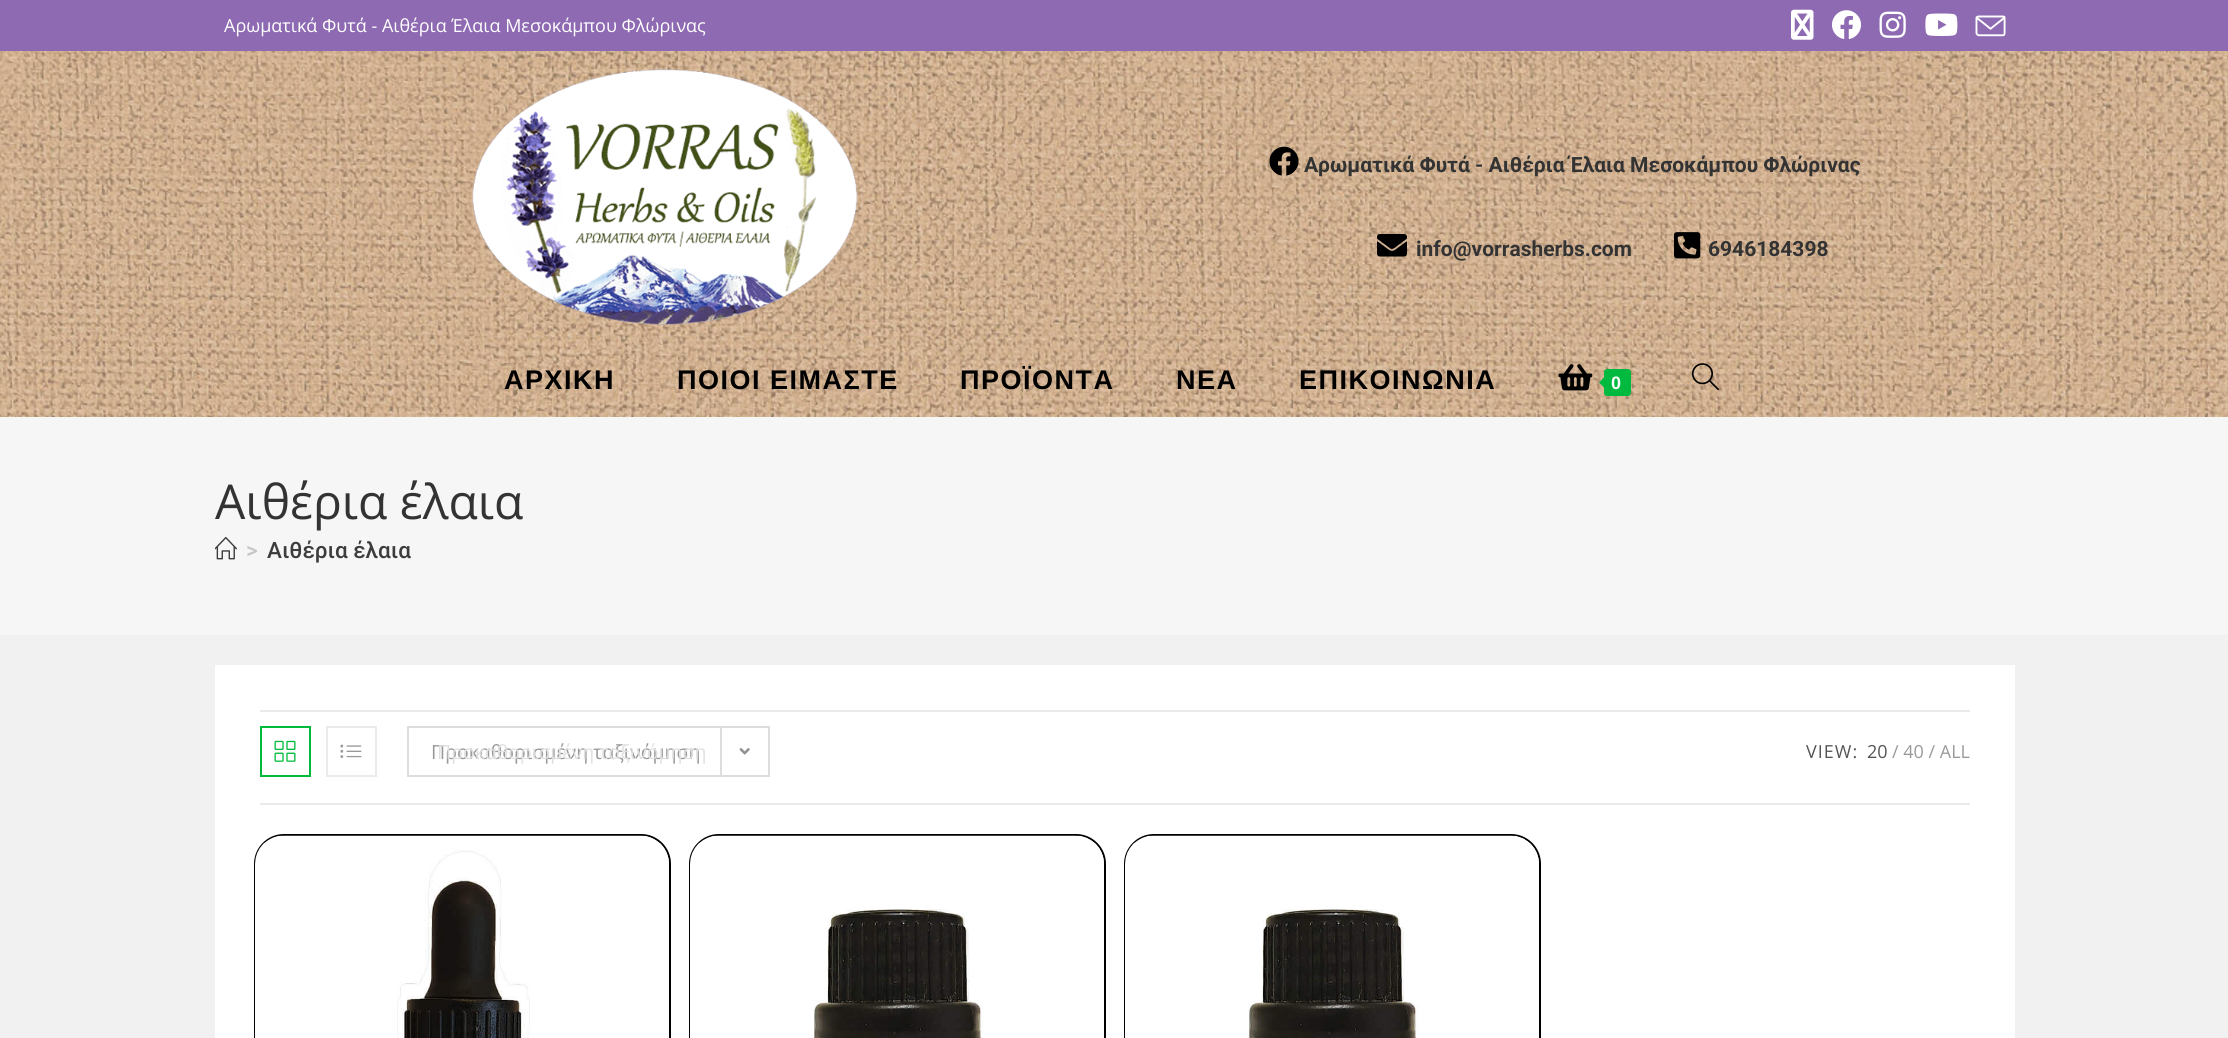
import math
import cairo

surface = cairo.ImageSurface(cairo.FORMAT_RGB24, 2228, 1038)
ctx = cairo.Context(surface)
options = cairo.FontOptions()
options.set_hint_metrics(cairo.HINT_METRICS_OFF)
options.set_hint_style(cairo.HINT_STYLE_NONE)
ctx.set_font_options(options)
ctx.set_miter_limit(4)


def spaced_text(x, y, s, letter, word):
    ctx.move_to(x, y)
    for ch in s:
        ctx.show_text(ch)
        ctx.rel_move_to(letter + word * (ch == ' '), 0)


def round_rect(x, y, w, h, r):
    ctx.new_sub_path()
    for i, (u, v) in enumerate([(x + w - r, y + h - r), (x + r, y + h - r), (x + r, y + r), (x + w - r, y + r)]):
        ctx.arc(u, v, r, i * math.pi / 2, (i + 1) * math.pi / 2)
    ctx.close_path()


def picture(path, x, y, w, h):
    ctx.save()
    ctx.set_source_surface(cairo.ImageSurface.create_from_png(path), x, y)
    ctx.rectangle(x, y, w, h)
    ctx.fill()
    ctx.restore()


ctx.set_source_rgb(0.945, 0.945, 0.945)
ctx.paint()
ctx.set_source_rgb(0.557, 0.416, 0.698)
ctx.rectangle(0, 0, 2228, 51)
ctx.fill()
ctx.select_font_face("Open Sans")
ctx.set_font_size(18)
ctx.set_source_rgb(1, 1, 1)
ctx.move_to(224, 32)
ctx.show_text("Αρωματικά Φυτά - Αιθέρια Έλαια Μεσοκάμπου Φλώρινας")
picture("img1.png", 1791, 9, 23, 31)
picture("img2.png", 1832, 10, 29, 29)
picture("img3.png", 1879, 11, 27, 27)
picture("img4.png", 1925, 13, 33, 23)
picture("img5.png", 1975, 15, 31, 22)
picture("img6.png", 0, 51, 2228, 366)
picture("img7.png", 472, 69, 386, 256)
picture("img8.png", 1269, 146, 30, 30)
ctx.select_font_face("Roboto", cairo.FONT_SLANT_NORMAL, cairo.FONT_WEIGHT_BOLD)
ctx.set_font_size(21)
ctx.set_source_rgb(0.2, 0.2, 0.2)
ctx.move_to(1304, 172)
ctx.show_text("Αρωματικά Φυτά - Αιθέρια Έλαια Μεσοκάμπου Φλώρινας")
picture("img9.png", 1377, 234, 30, 23)
ctx.move_to(1416, 256)
ctx.show_text("info@vorrasherbs.com")
picture("img10.png", 1674, 232, 27, 27)
ctx.move_to(1708, 256)
ctx.show_text("6946184398")
ctx.select_font_face("Liberation Sans", cairo.FONT_SLANT_NORMAL, cairo.FONT_WEIGHT_BOLD)
ctx.set_font_size(27)
ctx.set_source_rgb(0, 0, 0)
spaced_text(504, 389, "ΑΡΧΙΚΗ", 1.5, 0)
spaced_text(677, 389, "ΠΟΙΟΙ ΕΙΜΑΣΤΕ", 1.5, 0)
spaced_text(960, 389, "ΠΡΟΪΟΝΤΑ", 1.5, 0)
spaced_text(1176, 389, "ΝΕΑ", 1.5, 0)
spaced_text(1299, 389, "ΕΠΙΚΟΙΝΩΝΙΑ", 1.5, 0)
picture("img11.png", 1558, 364, 35, 27)
ctx.set_source_rgb(0, 0.729, 0.247)
round_rect(1604, 369, 27, 27, 3)
ctx.fill()
ctx.new_path()
ctx.move_to(1606.5, 375)
ctx.line_to(1606.5, 390)
ctx.line_to(1599, 382.5)
ctx.close_path()
ctx.fill()
ctx.set_font_size(18)
ctx.set_source_rgb(1, 1, 1)
spaced_text(1611, 389, "0", 1.5, 0)
picture("img12.png", 1691, 363, 28, 28)
ctx.set_source_rgb(0.961, 0.961, 0.961)
ctx.rectangle(0, 417, 2228, 218)
ctx.fill()
ctx.select_font_face("Open Sans")
ctx.set_font_size(48)
ctx.set_source_rgb(0.2, 0.2, 0.2)
ctx.move_to(215, 519)
ctx.show_text("Αιθέρια έλαια")
picture("img13.png", 215, 536, 22, 24)
ctx.select_font_face("Roboto Medium")
ctx.set_font_size(22.5)
ctx.set_source_rgb(0.776, 0.776, 0.776)
ctx.move_to(246, 558)
ctx.show_text(">")
ctx.set_source_rgb(0.239, 0.239, 0.239)
ctx.move_to(267, 558)
ctx.show_text("Αιθέρια έλαια")
ctx.set_source_rgb(1, 1, 1)
ctx.rectangle(215, 665, 1800, 373)
ctx.fill()
ctx.set_source_rgb(0.918, 0.918, 0.918)
ctx.rectangle(260, 710, 1710, 2)
ctx.fill()
ctx.rectangle(260, 803, 1710, 2)
ctx.fill()
ctx.rectangle(261, 727, 49, 49)
ctx.set_source_rgb(0, 0.729, 0.227)
ctx.stroke()
picture("img14.png", 274, 740, 22, 22)
ctx.rectangle(327, 727, 49, 49)
ctx.set_source_rgb(0.918, 0.918, 0.918)
ctx.stroke()
picture("img15.png", 340, 744, 22, 14)
ctx.rectangle(408, 727, 361, 49)
ctx.set_source_rgb(0.867, 0.867, 0.867)
ctx.stroke()
ctx.select_font_face("Open Sans")
ctx.set_font_size(19.5)
ctx.set_source_rgb(0.6, 0.6, 0.6)
ctx.move_to(431, 759)
ctx.show_text("Προκαθορισμένη ταξινόμηση")
ctx.set_source_rgb(0.867, 0.867, 0.867)
ctx.rectangle(720, 728, 2, 48)
ctx.fill()
picture("img16.png", 739, 748, 11, 7)
ctx.set_source_rgb(0.878, 0.878, 0.878)
ctx.move_to(437, 759)
ctx.show_text("Προκαθορισμένη ταξινόμηση")
ctx.set_font_size(18)
ctx.set_source_rgb(0.333, 0.333, 0.333)
spaced_text(1806, 758, "VIEW:", 1, 0)
ctx.move_to(1867, 758)
ctx.show_text("20")
ctx.set_source_rgb(0.6, 0.6, 0.6)
ctx.move_to(1892, 758)
ctx.show_text("/ 40 / ALL")
round_rect(255, 835, 415, 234, 29)
ctx.set_source_rgb(0, 0, 0)
ctx.stroke()
picture("img17.png", 255, 835, 414, 203)
round_rect(690, 835, 415, 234, 29)
ctx.stroke()
picture("img18.png", 690, 835, 414, 203)
round_rect(1125, 835, 415, 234, 29)
ctx.stroke()
picture("img19.png", 1125, 835, 414, 203)
surface.write_to_png("page.png")
